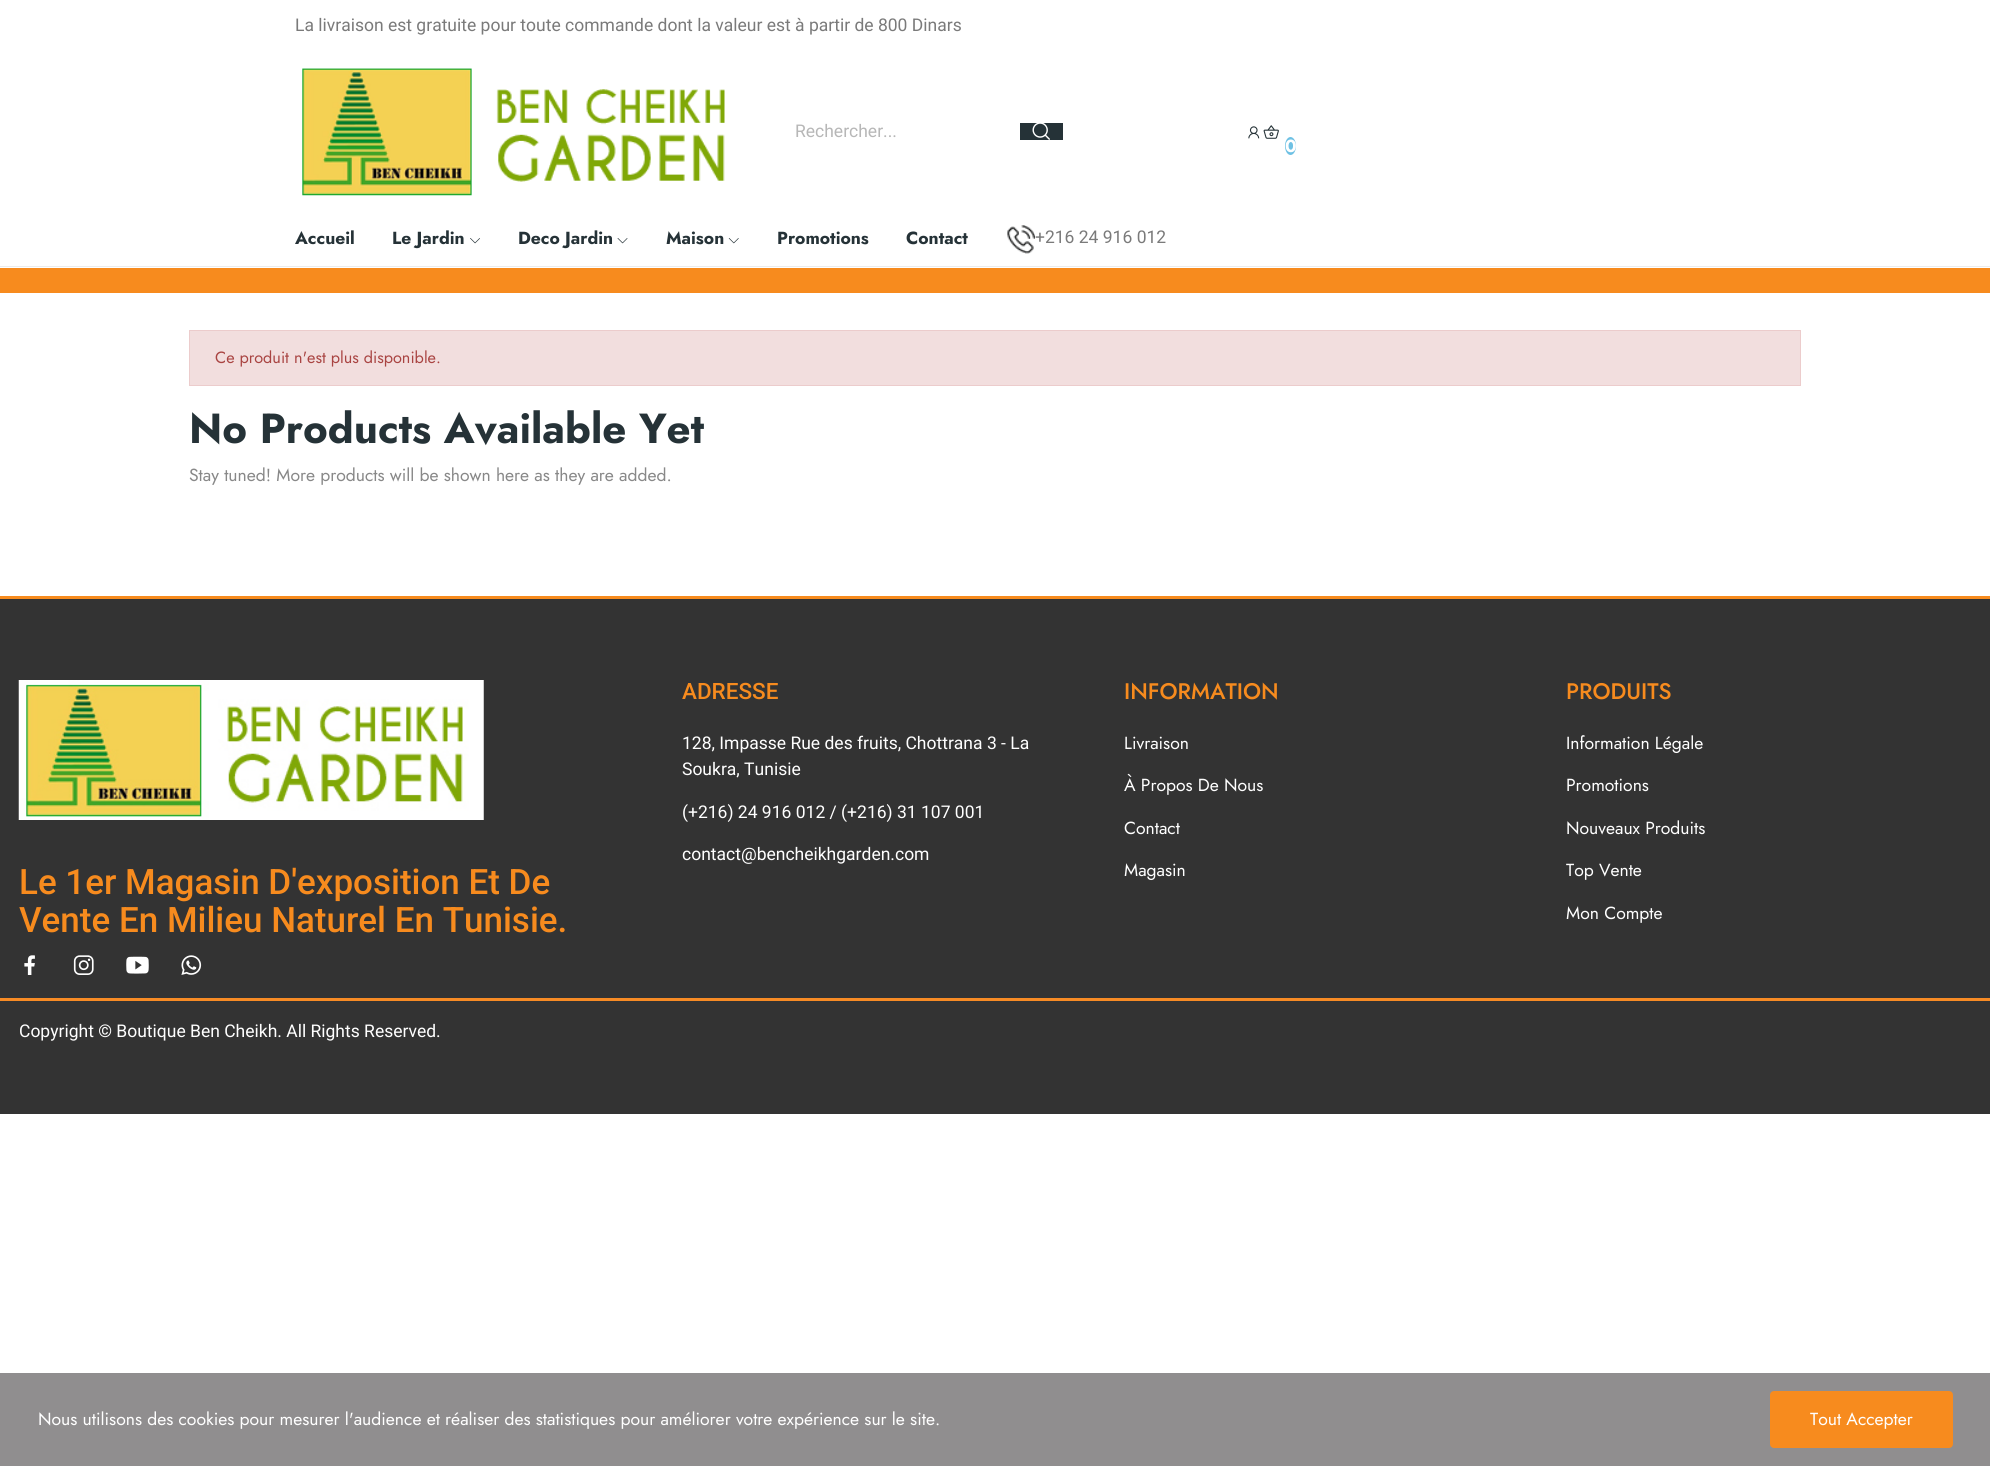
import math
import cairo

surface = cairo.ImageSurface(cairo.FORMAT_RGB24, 1990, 1466)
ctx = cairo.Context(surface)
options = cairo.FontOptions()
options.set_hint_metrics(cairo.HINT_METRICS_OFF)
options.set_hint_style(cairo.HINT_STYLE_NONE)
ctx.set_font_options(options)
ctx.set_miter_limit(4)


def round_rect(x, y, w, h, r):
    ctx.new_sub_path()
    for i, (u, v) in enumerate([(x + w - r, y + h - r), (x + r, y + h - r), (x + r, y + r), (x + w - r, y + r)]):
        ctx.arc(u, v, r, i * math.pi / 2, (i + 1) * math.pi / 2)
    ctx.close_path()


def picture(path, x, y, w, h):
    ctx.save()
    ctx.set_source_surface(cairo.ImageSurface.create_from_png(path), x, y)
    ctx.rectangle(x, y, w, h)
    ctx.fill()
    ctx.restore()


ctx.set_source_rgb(1, 1, 1)
ctx.paint()
ctx.set_source_rgb(0.922, 0.922, 0.922)
ctx.rectangle(0, 266, 1990, 1)
ctx.fill()
ctx.select_font_face("Roboto")
ctx.set_font_size(17.5)
ctx.set_source_rgb(0.478, 0.478, 0.478)
ctx.move_to(295, 31)
ctx.show_text("La livraison est gratuite pour toute commande dont la valeur est à partir de 800 Dinars")
picture("img1.png", 302, 68, 423, 128)
ctx.set_source_rgb(0.718, 0.718, 0.718)
ctx.move_to(795, 137)
ctx.show_text("Rechercher...")
ctx.set_source_rgb(0.145, 0.196, 0.216)
ctx.rectangle(1020, 123, 43, 17)
ctx.fill()
picture("img2.png", 1032, 123, 18, 17)
picture("img3.png", 1248, 126, 12, 13)
picture("img4.png", 1263, 125, 16, 14)
ctx.set_source_rgb(0.431, 0.757, 0.894)
ctx.new_path()
ctx.move_to(1290.5, 137)
ctx.curve_to(1293.5, 137, 1296, 141, 1296, 146)
ctx.curve_to(1296, 151, 1293.5, 155, 1290.5, 155)
ctx.curve_to(1287.5, 155, 1285, 151, 1285, 146)
ctx.curve_to(1285, 141, 1287.5, 137, 1290.5, 137)
ctx.close_path()
ctx.fill()
ctx.select_font_face("Jost", cairo.FONT_SLANT_NORMAL, cairo.FONT_WEIGHT_BOLD)
ctx.set_source_rgb(1, 1, 1)
ctx.move_to(1285, 152)
ctx.show_text("0")
ctx.set_source_rgb(0.145, 0.196, 0.216)
ctx.move_to(295, 244)
ctx.show_text("Accueil")
ctx.move_to(392, 244)
ctx.show_text("Le Jardin")
picture("img5.png", 470, 238, 10, 6)
ctx.move_to(518, 244)
ctx.show_text("Deco Jardin")
picture("img6.png", 617, 238, 11, 6)
ctx.move_to(666, 244)
ctx.show_text("Maison")
picture("img7.png", 728, 238, 11, 6)
ctx.move_to(777, 244)
ctx.show_text("Promotions")
ctx.move_to(906, 244)
ctx.show_text("Contact")
picture("img8.png", 1007, 225, 28, 29)
ctx.select_font_face("Roboto")
ctx.set_source_rgb(0.478, 0.478, 0.478)
ctx.move_to(1035, 243)
ctx.show_text("+216 24 916 012")
ctx.set_source_rgb(0.965, 0.545, 0.118)
ctx.rectangle(0, 268, 1990, 25)
ctx.fill()
ctx.set_source_rgb(0.949, 0.871, 0.871)
ctx.rectangle(189.5, 330.5, 1611, 55)
ctx.fill_preserve()
ctx.set_source_rgb(0.922, 0.8, 0.8)
ctx.set_line_width(1)
ctx.stroke()
ctx.select_font_face("Jost")
ctx.set_font_size(16.25)
ctx.set_source_rgb(0.663, 0.267, 0.259)
ctx.move_to(215, 363)
ctx.show_text("Ce produit n'est plus disponible.")
ctx.select_font_face("Jost", cairo.FONT_SLANT_NORMAL, cairo.FONT_WEIGHT_BOLD)
ctx.set_font_size(42)
ctx.set_source_rgb(0.145, 0.196, 0.216)
ctx.move_to(189, 443)
ctx.show_text("No Products Available Yet")
ctx.select_font_face("Jost")
ctx.set_font_size(17.5)
ctx.set_source_rgb(0.533, 0.533, 0.533)
ctx.move_to(189, 481)
ctx.show_text("Stay tuned! More products will be shown here as they are added.")
ctx.set_source_rgb(0.2, 0.2, 0.2)
ctx.rectangle(0, 599, 1990, 399)
ctx.fill()
ctx.set_source_rgb(0.965, 0.545, 0.118)
ctx.rectangle(0, 596, 1990, 3)
ctx.fill()
picture("img9.png", 18, 680, 466, 140)
ctx.select_font_face("Roboto Medium")
ctx.set_font_size(35)
ctx.move_to(19, 894)
ctx.show_text("Le 1er Magasin D'exposition Et De")
ctx.move_to(19, 932)
ctx.show_text("Vente En Milieu Naturel En Tunisie.")
picture("img10.png", 24, 955, 11, 20)
picture("img11.png", 73, 955, 21, 20)
picture("img12.png", 126, 956, 23, 18)
picture("img13.png", 181, 955, 21, 20)
ctx.set_font_size(22.5)
ctx.move_to(682, 699)
ctx.show_text("ADRESSE")
ctx.select_font_face("Roboto")
ctx.set_font_size(17.5)
ctx.set_source_rgb(1, 1, 1)
ctx.move_to(682, 749)
ctx.show_text("128, Impasse Rue des fruits, Chottrana 3 - La")
ctx.move_to(682, 775)
ctx.show_text("Soukra, Tunisie")
ctx.move_to(682, 818)
ctx.show_text("(+216) 24 916 012 / (+216) 31 107 001")
ctx.move_to(682, 860)
ctx.show_text("contact@bencheikhgarden.com")
ctx.select_font_face("Jost Medium")
ctx.set_font_size(22.5)
ctx.set_source_rgb(0.965, 0.545, 0.118)
ctx.move_to(1124, 699)
ctx.show_text("INFORMATION")
ctx.select_font_face("Jost")
ctx.set_font_size(17.5)
ctx.set_source_rgb(1, 1, 1)
ctx.move_to(1124, 749)
ctx.show_text("Livraison")
ctx.move_to(1124, 791)
ctx.show_text("À Propos De Nous")
ctx.move_to(1124, 834)
ctx.show_text("Contact")
ctx.move_to(1124, 876)
ctx.show_text("Magasin")
ctx.select_font_face("Jost Medium")
ctx.set_font_size(22.5)
ctx.set_source_rgb(0.965, 0.545, 0.118)
ctx.move_to(1566, 699)
ctx.show_text("PRODUITS")
ctx.select_font_face("Jost")
ctx.set_font_size(17.5)
ctx.set_source_rgb(1, 1, 1)
ctx.move_to(1566, 749)
ctx.show_text("Information Légale")
ctx.move_to(1566, 791)
ctx.show_text("Promotions")
ctx.move_to(1566, 834)
ctx.show_text("Nouveaux Produits")
ctx.move_to(1566, 876)
ctx.show_text("Top Vente")
ctx.move_to(1566, 919)
ctx.show_text("Mon Compte")
ctx.set_source_rgb(0.2, 0.2, 0.2)
ctx.rectangle(0, 1001, 1990, 113)
ctx.fill()
ctx.set_source_rgb(0.965, 0.545, 0.145)
ctx.rectangle(0, 998, 1990, 3)
ctx.fill()
ctx.select_font_face("Roboto")
ctx.set_source_rgb(1, 1, 1)
ctx.move_to(19, 1037)
ctx.show_text("Copyright © Boutique Ben Cheikh. All Rights Reserved.")
ctx.set_source_rgb(0.565, 0.557, 0.561)
ctx.rectangle(0, 1373, 1990, 93)
ctx.fill()
ctx.select_font_face("Jost")
ctx.set_source_rgb(1, 1, 1)
ctx.move_to(38, 1425)
ctx.show_text("Nous utilisons des cookies pour mesurer l'audience et réaliser des statistiques pour améliorer votre expérience sur le site.")
ctx.set_source_rgb(0.965, 0.545, 0.118)
round_rect(1771.5, 1392.5, 180, 54, 2.5)
ctx.fill_preserve()
ctx.set_line_width(3)
ctx.stroke()
ctx.set_source_rgb(1, 1, 1)
ctx.move_to(1810, 1425)
ctx.show_text("Tout Accepter")
surface.write_to_png("page.png")
